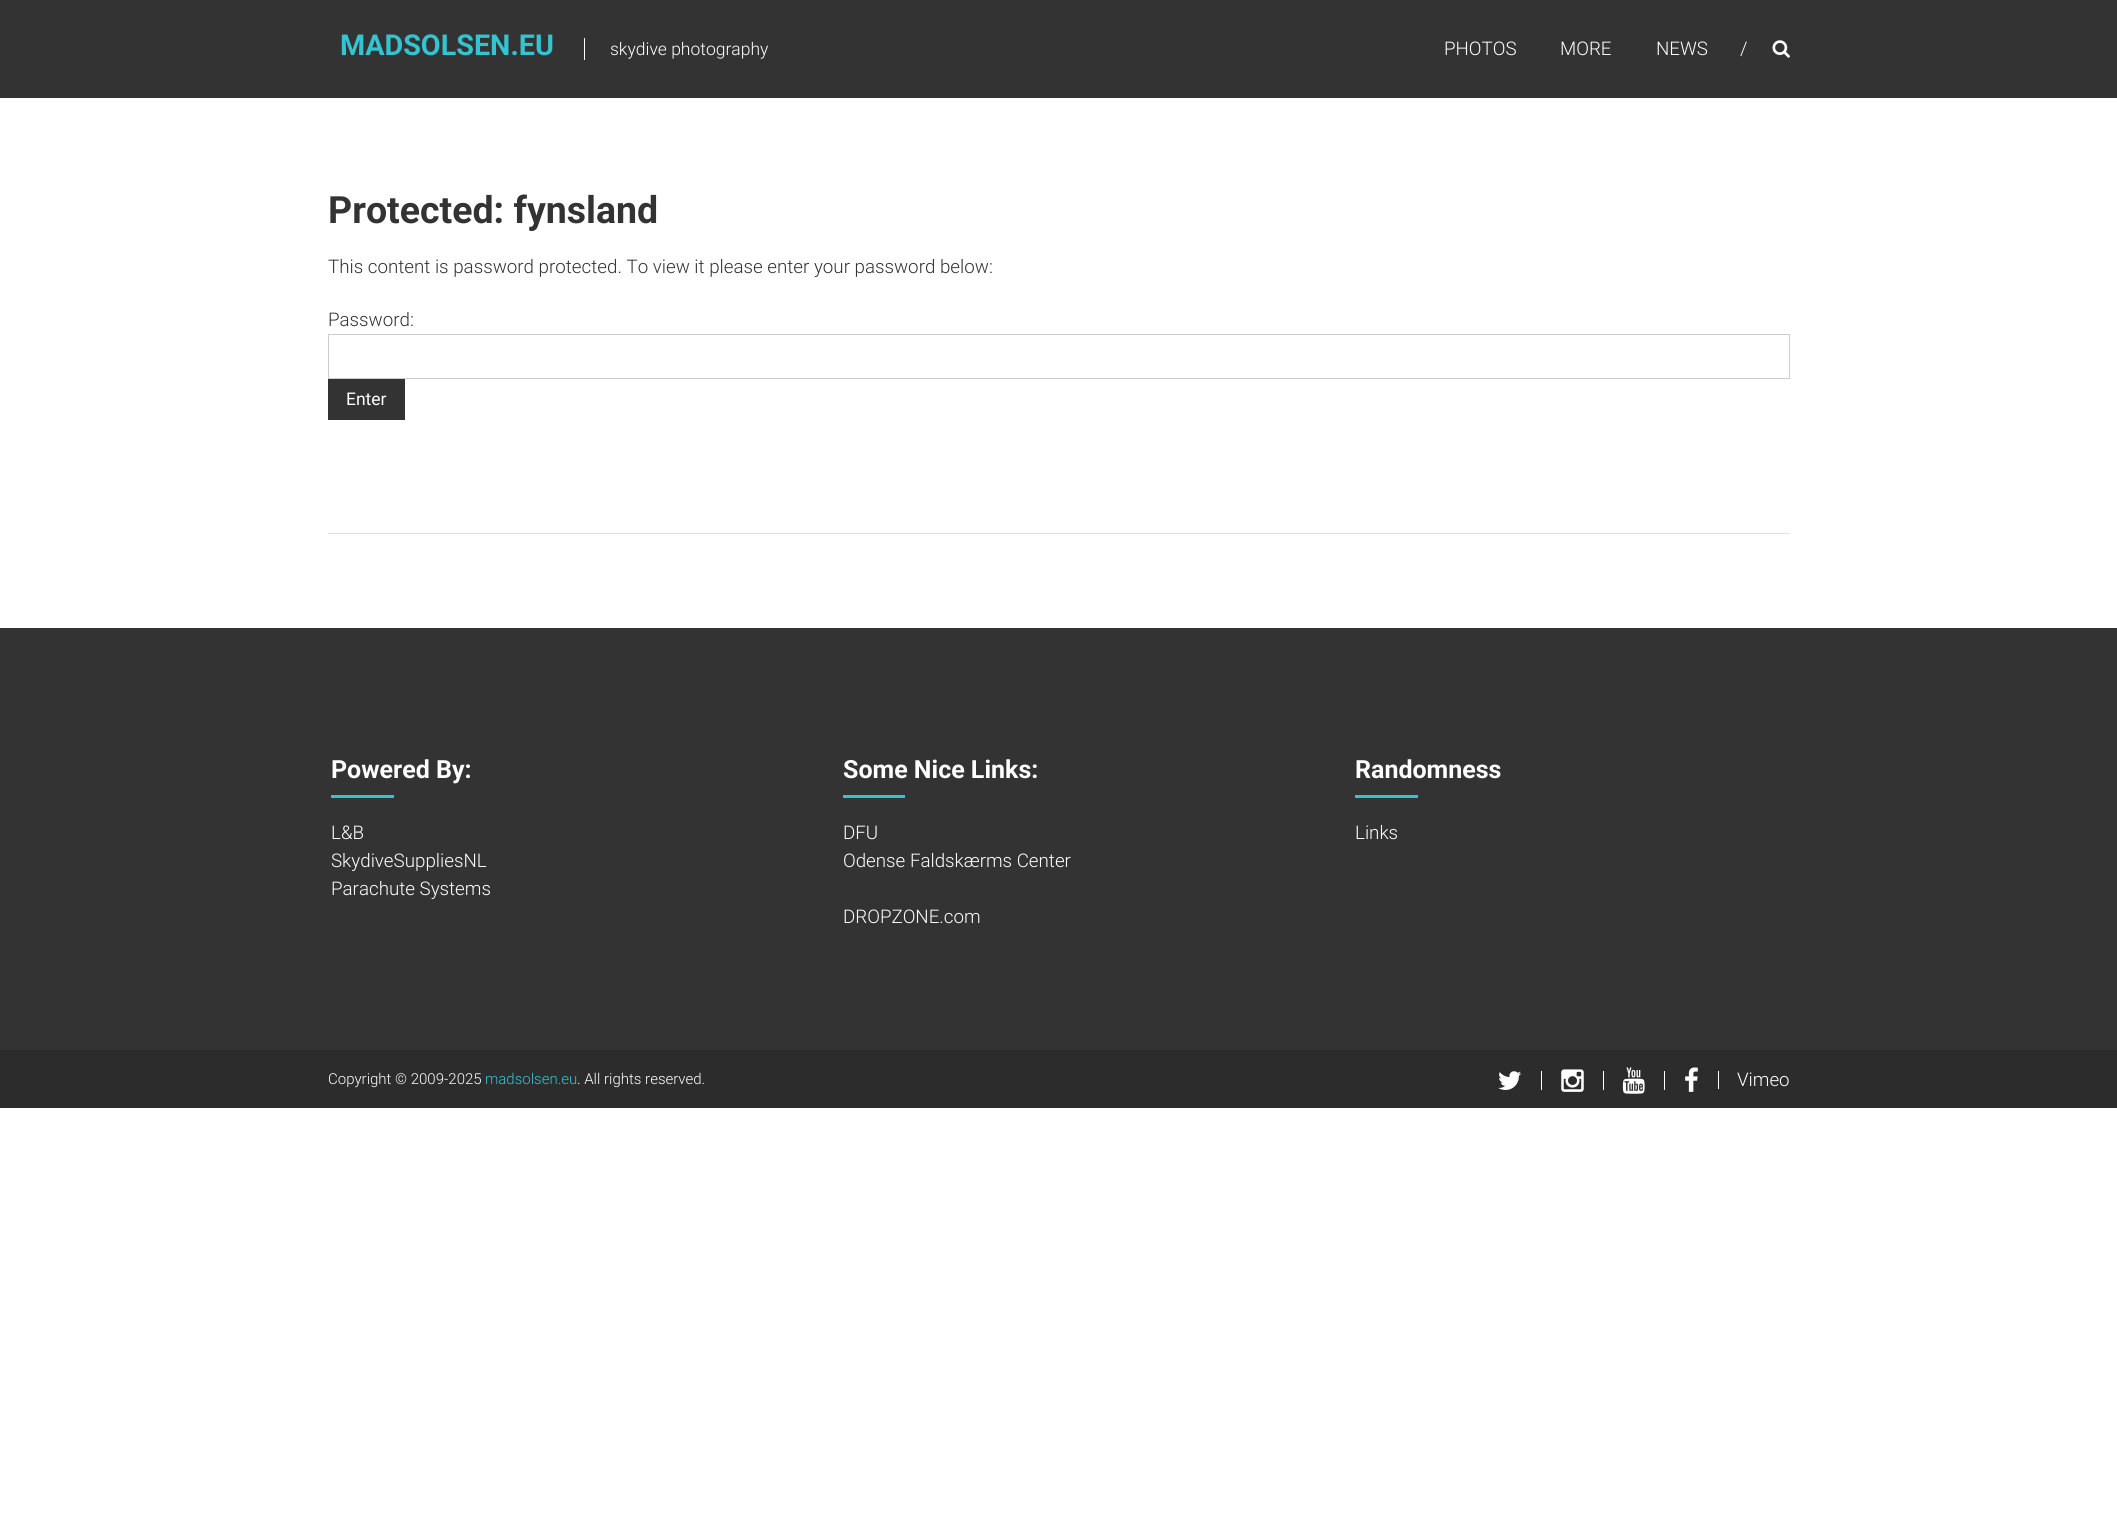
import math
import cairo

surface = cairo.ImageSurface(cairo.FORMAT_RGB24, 2117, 1539)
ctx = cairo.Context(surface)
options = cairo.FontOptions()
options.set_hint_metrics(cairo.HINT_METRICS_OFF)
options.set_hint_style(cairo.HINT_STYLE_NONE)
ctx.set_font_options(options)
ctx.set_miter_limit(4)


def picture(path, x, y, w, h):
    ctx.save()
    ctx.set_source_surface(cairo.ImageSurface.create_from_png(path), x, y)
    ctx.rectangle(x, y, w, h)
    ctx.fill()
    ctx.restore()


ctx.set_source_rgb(1, 1, 1)
ctx.paint()
ctx.set_source_rgb(0.2, 0.2, 0.2)
ctx.rectangle(0, 0, 2117, 98)
ctx.fill()
ctx.select_font_face("Roboto", cairo.FONT_SLANT_NORMAL, cairo.FONT_WEIGHT_BOLD)
ctx.set_font_size(28.75)
ctx.set_source_rgb(0.196, 0.769, 0.82)
ctx.move_to(340, 55)
ctx.show_text("MADSOLSEN.EU")
ctx.set_source_rgb(1, 1, 1)
ctx.rectangle(584, 38, 1, 22)
ctx.fill()
ctx.select_font_face("Roboto Light")
ctx.set_font_size(17.5)
ctx.move_to(610, 55)
ctx.show_text("skydive photography")
ctx.set_font_size(18.75)
ctx.move_to(1444, 55)
ctx.show_text("PHOTOS")
ctx.move_to(1560, 55)
ctx.show_text("MORE")
ctx.move_to(1656, 55)
ctx.show_text("NEWS")
ctx.move_to(1740, 55)
ctx.show_text("/")
picture("img1.png", 1772, 40, 18, 18)
ctx.set_source_rgb(0.882, 0.882, 0.882)
ctx.rectangle(328, 533, 1462, 1)
ctx.fill()
ctx.select_font_face("Roboto", cairo.FONT_SLANT_NORMAL, cairo.FONT_WEIGHT_BOLD)
ctx.set_font_size(37.5)
ctx.set_source_rgb(0.2, 0.2, 0.2)
ctx.move_to(328, 223)
ctx.show_text("Protected: fynsland")
ctx.select_font_face("Roboto Light")
ctx.set_font_size(18.75)
ctx.move_to(328, 273)
ctx.show_text("This content is password protected. To view it please enter your password below:")
ctx.move_to(328, 326)
ctx.show_text("Password:")
ctx.rectangle(328.5, 334.5, 1461, 44)
ctx.set_source_rgb(0.8, 0.8, 0.8)
ctx.set_line_width(1)
ctx.stroke()
ctx.set_source_rgb(0.2, 0.2, 0.2)
ctx.rectangle(328, 379, 77, 41)
ctx.fill()
ctx.select_font_face("Roboto")
ctx.set_font_size(17.5)
ctx.set_source_rgb(1, 1, 1)
ctx.move_to(346, 405)
ctx.show_text("Enter")
ctx.set_source_rgb(0.2, 0.2, 0.2)
ctx.rectangle(0, 628, 2117, 422)
ctx.fill()
ctx.select_font_face("Roboto", cairo.FONT_SLANT_NORMAL, cairo.FONT_WEIGHT_BOLD)
ctx.set_font_size(25)
ctx.set_source_rgb(1, 1, 1)
ctx.move_to(331, 778)
ctx.show_text("Powered By:")
ctx.set_source_rgb(0.196, 0.769, 0.82)
ctx.rectangle(331, 795, 63, 3)
ctx.fill()
ctx.select_font_face("Roboto Light")
ctx.set_font_size(18.75)
ctx.set_source_rgb(1, 1, 1)
ctx.move_to(331, 839)
ctx.show_text("L&B")
ctx.move_to(331, 867)
ctx.show_text("SkydiveSuppliesNL")
ctx.move_to(331, 895)
ctx.show_text("Parachute Systems")
ctx.select_font_face("Roboto", cairo.FONT_SLANT_NORMAL, cairo.FONT_WEIGHT_BOLD)
ctx.set_font_size(25)
ctx.move_to(843, 778)
ctx.show_text("Some Nice Links:")
ctx.set_source_rgb(0.196, 0.769, 0.82)
ctx.rectangle(843, 795, 62, 3)
ctx.fill()
ctx.select_font_face("Roboto Light")
ctx.set_font_size(18.75)
ctx.set_source_rgb(1, 1, 1)
ctx.move_to(843, 839)
ctx.show_text("DFU")
ctx.move_to(843, 867)
ctx.show_text("Odense Faldskærms Center")
ctx.move_to(843, 923)
ctx.show_text("DROPZONE.com")
ctx.select_font_face("Roboto", cairo.FONT_SLANT_NORMAL, cairo.FONT_WEIGHT_BOLD)
ctx.set_font_size(25)
ctx.move_to(1355, 778)
ctx.show_text("Randomness")
ctx.set_source_rgb(0.196, 0.769, 0.82)
ctx.rectangle(1355, 795, 63, 3)
ctx.fill()
ctx.select_font_face("Roboto Light")
ctx.set_font_size(18.75)
ctx.set_source_rgb(1, 1, 1)
ctx.move_to(1355, 839)
ctx.show_text("Links")
ctx.set_source_rgb(0.173, 0.173, 0.173)
ctx.rectangle(0, 1050, 2117, 58)
ctx.fill()
ctx.set_font_size(15)
ctx.set_source_rgb(1, 1, 1)
ctx.move_to(328, 1084)
ctx.show_text("Copyright © 2009-2025")
ctx.set_source_rgb(0.196, 0.769, 0.82)
ctx.move_to(485, 1084)
ctx.show_text("madsolsen.eu")
ctx.set_source_rgb(1, 1, 1)
ctx.move_to(577, 1084)
ctx.show_text(". All rights reserved.")
picture("img2.png", 1498, 1071, 24, 19)
ctx.rectangle(1541, 1071, 1, 19)
ctx.fill()
picture("img3.png", 1561, 1069, 23, 23)
ctx.rectangle(1603, 1071, 1, 19)
ctx.fill()
picture("img4.png", 1622, 1067, 23, 27)
ctx.rectangle(1664, 1071, 1, 19)
ctx.fill()
picture("img5.png", 1685, 1067, 13, 25)
ctx.rectangle(1718, 1071, 1, 18)
ctx.fill()
ctx.set_font_size(18.75)
ctx.move_to(1737, 1086)
ctx.show_text("Vimeo")
surface.write_to_png("page.png")
